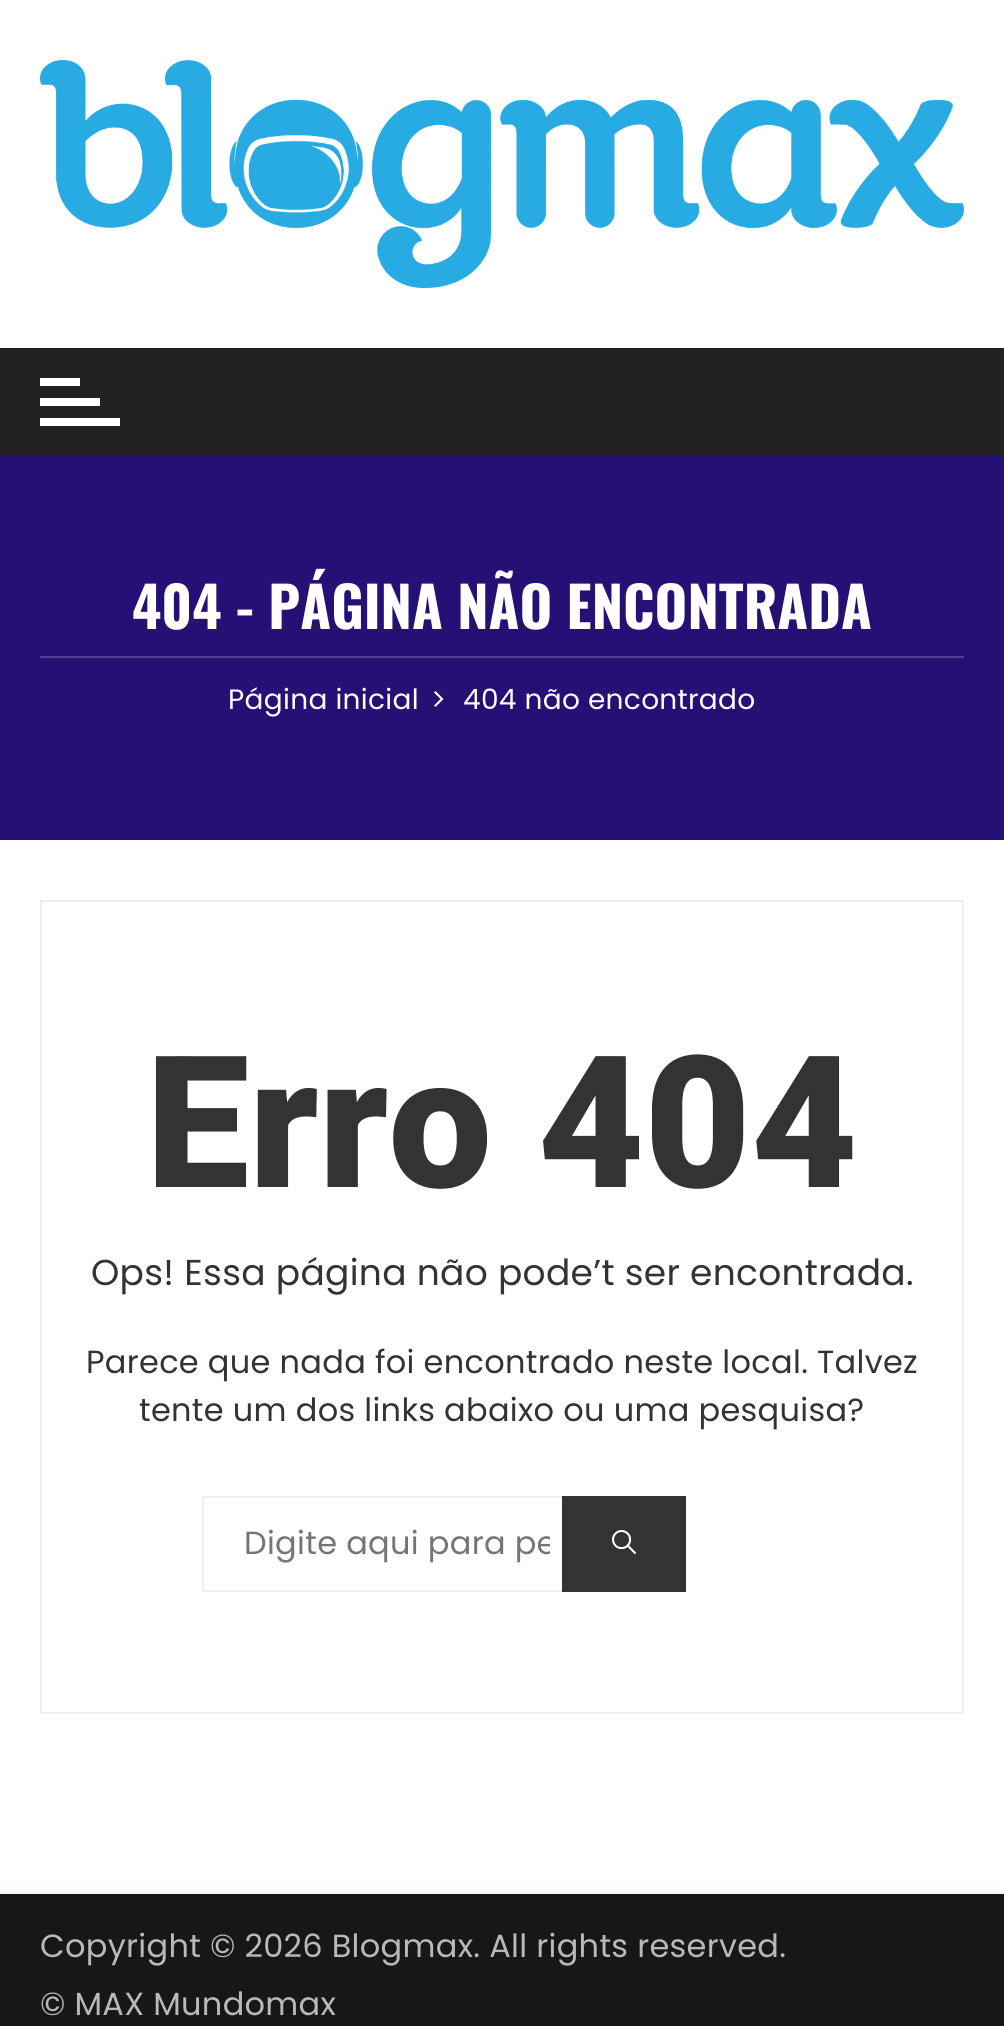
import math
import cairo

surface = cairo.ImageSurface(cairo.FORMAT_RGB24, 1004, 2026)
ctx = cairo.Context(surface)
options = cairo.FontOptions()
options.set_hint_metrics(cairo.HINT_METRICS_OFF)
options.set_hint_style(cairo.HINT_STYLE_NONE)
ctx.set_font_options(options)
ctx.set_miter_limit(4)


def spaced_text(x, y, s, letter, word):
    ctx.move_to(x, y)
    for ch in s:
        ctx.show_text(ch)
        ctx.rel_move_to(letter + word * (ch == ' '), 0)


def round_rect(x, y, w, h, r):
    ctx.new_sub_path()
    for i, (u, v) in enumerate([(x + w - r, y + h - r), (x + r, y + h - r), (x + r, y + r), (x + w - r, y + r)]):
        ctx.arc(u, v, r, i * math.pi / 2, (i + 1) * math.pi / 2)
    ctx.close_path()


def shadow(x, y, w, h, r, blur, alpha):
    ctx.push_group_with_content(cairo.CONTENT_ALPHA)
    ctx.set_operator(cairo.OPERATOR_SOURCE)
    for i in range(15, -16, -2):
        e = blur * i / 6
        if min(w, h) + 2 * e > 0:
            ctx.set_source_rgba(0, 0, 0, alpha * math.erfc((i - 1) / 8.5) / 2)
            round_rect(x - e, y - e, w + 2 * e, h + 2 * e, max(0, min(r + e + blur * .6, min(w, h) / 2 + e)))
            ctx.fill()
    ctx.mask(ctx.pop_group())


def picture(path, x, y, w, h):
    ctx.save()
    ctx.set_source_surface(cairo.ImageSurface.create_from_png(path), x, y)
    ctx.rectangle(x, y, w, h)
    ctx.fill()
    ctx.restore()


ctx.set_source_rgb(1, 1, 1)
ctx.paint()
picture("img1.png", 40, 60, 924, 228)
ctx.set_source_rgb(0.133, 0.133, 0.133)
ctx.rectangle(0, 348, 1004, 108)
ctx.fill()
ctx.set_source_rgb(1, 1, 1)
ctx.rectangle(40, 378, 40, 8)
ctx.fill()
ctx.rectangle(40, 398, 60, 8)
ctx.fill()
ctx.rectangle(40, 418, 80, 8)
ctx.fill()
ctx.set_source_rgb(0.149, 0.063, 0.459)
ctx.rectangle(0, 456, 1004, 384)
ctx.fill()
ctx.set_source_rgb(0.318, 0.251, 0.569)
ctx.rectangle(40, 656, 924, 2)
ctx.fill()
ctx.select_font_face("Oswald", cairo.FONT_SLANT_NORMAL, cairo.FONT_WEIGHT_BOLD)
ctx.set_font_size(56)
ctx.set_source_rgb(1, 1, 1)
ctx.move_to(132, 629)
ctx.show_text("404 - PÁGINA NÃO ENCONTRADA")
ctx.select_font_face("Poppins")
ctx.set_font_size(28)
spaced_text(228, 709, "Página inicial", 0.3, 0)
picture("img2.png", 434, 691, 10, 16)
spaced_text(463, 709, "404 não encontrado", 0.3, 0)
ctx.rectangle(41, 901, 922, 812)
ctx.set_source_rgb(0.933, 0.933, 0.933)
ctx.stroke()
ctx.select_font_face("Roboto Black")
ctx.set_font_size(184)
ctx.set_source_rgb(0.2, 0.2, 0.2)
ctx.move_to(146, 1187)
ctx.show_text("Erro 404")
ctx.select_font_face("Poppins")
ctx.set_font_size(36)
spaced_text(91, 1285, "Ops! Essa página não pode’t ser encontrada.", 0.3, 0)
ctx.set_font_size(32)
spaced_text(86, 1373, "Parece que nada foi encontrado neste local. Talvez", 0.3, 0)
spaced_text(139, 1421, "tente um dos links abaixo ou uma pesquisa?", 0.3, 0)
ctx.set_source_rgb(0.933, 0.933, 0.933)
ctx.rectangle(202, 1496, 360, 2)
ctx.fill()
ctx.rectangle(202, 1590, 360, 2)
ctx.fill()
ctx.rectangle(202, 1496, 2, 96)
ctx.fill()
ctx.save()
ctx.rectangle(244, 1518, 306, 50)
ctx.clip()
ctx.set_source_rgb(0.459, 0.459, 0.459)
spaced_text(244, 1554, "Digite aqui para pe", 0.3, 0)
ctx.restore()
ctx.set_source_rgb(0.2, 0.2, 0.2)
ctx.rectangle(562, 1496, 124, 96)
ctx.fill()
picture("img3.png", 612, 1530, 24, 24)
ctx.set_source_rgb(0, 0, 0)
shadow(0, 1898, 1004, 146, 0, 6, 0.2)
ctx.set_source_rgb(0.09, 0.09, 0.09)
ctx.rectangle(0, 1894, 1004, 132)
ctx.fill()
ctx.set_source_rgb(0.725, 0.725, 0.725)
spaced_text(40, 1957, "Copyright © 2026 Blogmax. All rights reserved.", 0.3, 0)
spaced_text(40, 2015, "© MAX Mundomax", 0.3, 0)
surface.write_to_png("page.png")
